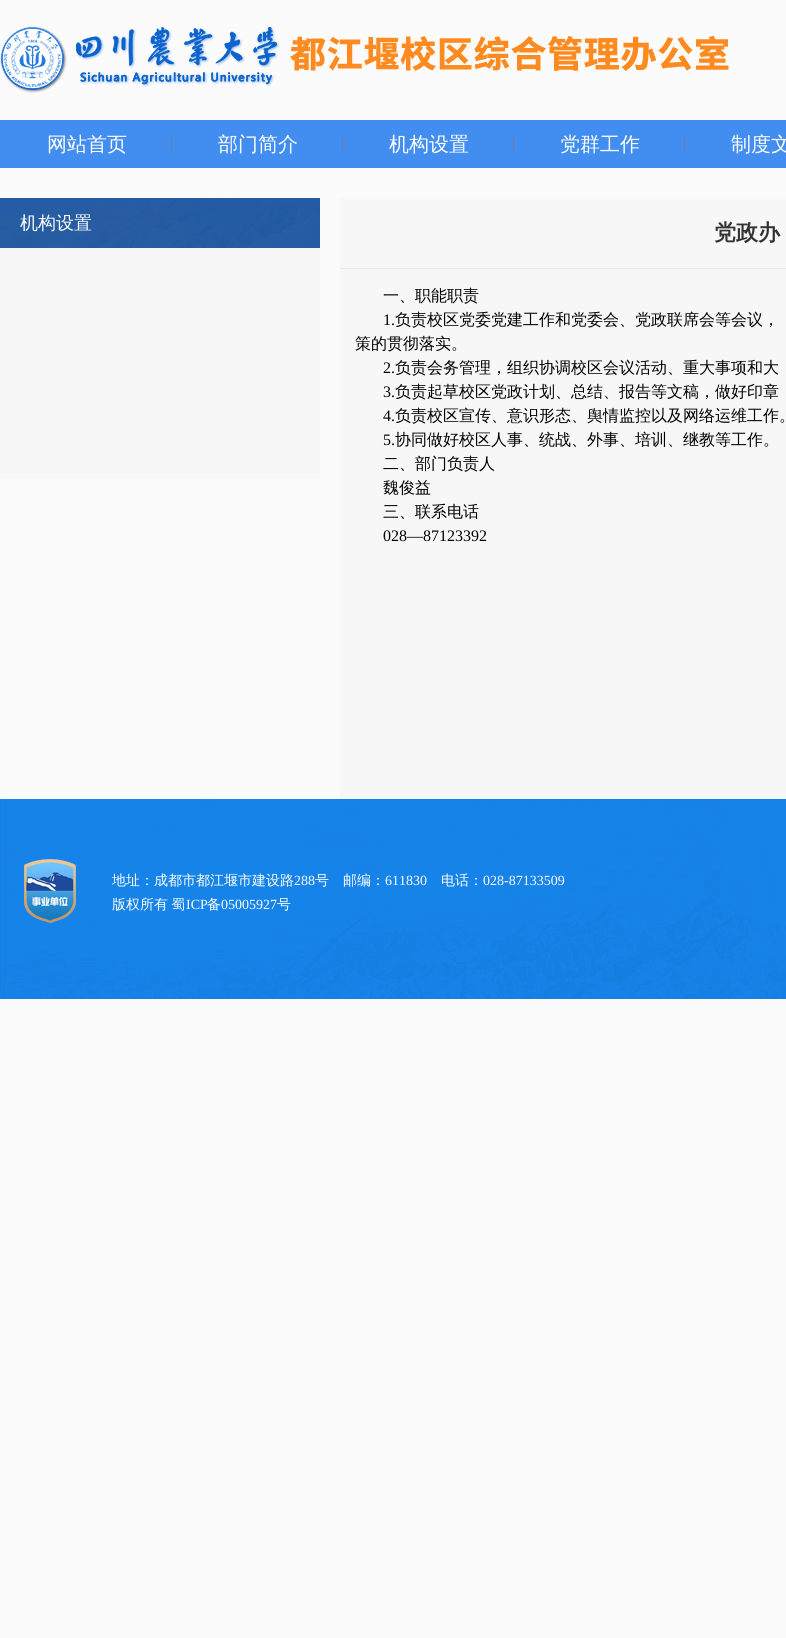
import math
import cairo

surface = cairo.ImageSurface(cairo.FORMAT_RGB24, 786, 1638)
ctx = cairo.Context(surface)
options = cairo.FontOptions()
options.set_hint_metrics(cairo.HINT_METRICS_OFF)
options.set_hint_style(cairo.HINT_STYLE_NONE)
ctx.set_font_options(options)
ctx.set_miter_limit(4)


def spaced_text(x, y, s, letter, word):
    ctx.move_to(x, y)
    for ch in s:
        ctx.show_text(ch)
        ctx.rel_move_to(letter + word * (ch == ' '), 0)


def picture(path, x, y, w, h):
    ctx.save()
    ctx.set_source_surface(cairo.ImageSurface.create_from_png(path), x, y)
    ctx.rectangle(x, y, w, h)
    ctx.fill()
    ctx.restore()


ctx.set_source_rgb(0.984, 0.984, 0.984)
ctx.paint()
picture("img1.png", 0, 26, 729, 67)
ctx.set_source_rgb(0.259, 0.557, 0.941)
ctx.rectangle(0, 120, 786, 48)
ctx.fill()
picture("img2.png", 171, 135, 1, 18)
ctx.select_font_face("WenQuanYi Zen Hei Medium")
ctx.set_font_size(20)
ctx.set_source_rgb(1, 1, 1)
ctx.move_to(47, 151)
ctx.show_text("网站首页")
picture("img2.png", 342, 135, 1, 18)
ctx.move_to(218, 151)
ctx.show_text("部门简介")
picture("img2.png", 513, 135, 1, 18)
ctx.move_to(389, 151)
ctx.show_text("机构设置")
picture("img2.png", 684, 135, 1, 18)
ctx.move_to(560, 151)
ctx.show_text("党群工作")
ctx.move_to(731, 151)
ctx.show_text("制度文")
picture("img3.png", 0, 198, 320, 50)
ctx.set_font_size(18)
ctx.move_to(20, 229)
ctx.show_text("机构设置")
ctx.set_source_rgb(0.965, 0.965, 0.965)
ctx.rectangle(0, 248, 320, 230)
ctx.fill()
ctx.rectangle(340, 198, 446, 601)
ctx.fill()
ctx.set_source_rgb(0.914, 0.914, 0.914)
ctx.rectangle(340, 268, 446, 1)
ctx.fill()
ctx.select_font_face("WenQuanYi Zen Hei", cairo.FONT_SLANT_NORMAL, cairo.FONT_WEIGHT_BOLD)
ctx.set_font_size(22)
ctx.set_source_rgb(0.2, 0.2, 0.2)
ctx.move_to(714, 240)
ctx.show_text("党政办")
ctx.select_font_face("WenQuanYi Zen Hei Medium")
ctx.set_font_size(16)
ctx.set_source_rgb(0, 0, 0)
ctx.move_to(383, 301)
ctx.show_text("一、职能职责")
ctx.select_font_face("Liberation Serif")
ctx.move_to(383, 325)
ctx.show_text("1.")
ctx.select_font_face("WenQuanYi Zen Hei Medium")
ctx.move_to(395, 325)
ctx.show_text("负责校区党委党建工作和党委会、党政联席会等会议，")
ctx.move_to(355, 349)
ctx.show_text("策的贯彻落实。")
ctx.select_font_face("Liberation Serif")
ctx.move_to(383, 373)
ctx.show_text("2.")
ctx.select_font_face("WenQuanYi Zen Hei Medium")
ctx.move_to(395, 373)
ctx.show_text("负责会务管理，组织协调校区会议活动、重大事项和大")
ctx.select_font_face("Liberation Serif")
ctx.move_to(383, 397)
ctx.show_text("3.")
ctx.select_font_face("WenQuanYi Zen Hei Medium")
ctx.move_to(395, 397)
ctx.show_text("负责起草校区党政计划、总结、报告等文稿，做好印章")
ctx.select_font_face("Liberation Serif")
ctx.move_to(383, 421)
ctx.show_text("4.")
ctx.select_font_face("WenQuanYi Zen Hei Medium")
ctx.move_to(395, 421)
ctx.show_text("负责校区宣传、意识形态、舆情监控以及网络运维工作。")
ctx.select_font_face("Liberation Serif")
ctx.move_to(383, 445)
ctx.show_text("5.")
ctx.select_font_face("WenQuanYi Zen Hei Medium")
ctx.move_to(395, 445)
ctx.show_text("协同做好校区人事、统战、外事、培训、继教等工作。")
ctx.move_to(383, 469)
ctx.show_text("二、部门负责人")
ctx.move_to(383, 493)
ctx.show_text("魏俊益")
ctx.move_to(383, 517)
ctx.show_text("三、联系电话")
ctx.select_font_face("Liberation Serif")
ctx.move_to(383, 541)
ctx.show_text("028—87123392")
picture("img4.png", 0, 799, 786, 200)
picture("img5.png", 24, 859, 52, 64)
ctx.select_font_face("WenQuanYi Zen Hei Medium")
ctx.set_font_size(14)
ctx.set_source_rgb(1, 1, 1)
ctx.move_to(112, 885)
ctx.show_text("地址：成都市都江堰市建设路")
ctx.select_font_face("Liberation Serif")
ctx.move_to(294, 885)
ctx.show_text("288")
ctx.select_font_face("WenQuanYi Zen Hei Medium")
ctx.move_to(315, 885)
ctx.show_text("号　邮编：")
ctx.select_font_face("Liberation Serif")
ctx.move_to(385, 885)
ctx.show_text("611830")
ctx.select_font_face("WenQuanYi Zen Hei Medium")
ctx.move_to(441, 885)
ctx.show_text("电话：")
ctx.select_font_face("Liberation Serif")
ctx.move_to(483, 885)
ctx.show_text("028-87133509")
ctx.select_font_face("WenQuanYi Zen Hei Medium")
spaced_text(112, 909, "版权所有 蜀", 0, -1)
ctx.select_font_face("Liberation Serif")
ctx.move_to(186, 909)
ctx.show_text("ICP")
ctx.select_font_face("WenQuanYi Zen Hei Medium")
ctx.move_to(207, 909)
ctx.show_text("备")
ctx.select_font_face("Liberation Serif")
ctx.move_to(221, 909)
ctx.show_text("05005927")
ctx.select_font_face("WenQuanYi Zen Hei Medium")
ctx.move_to(277, 909)
ctx.show_text("号")
surface.write_to_png("page.png")
